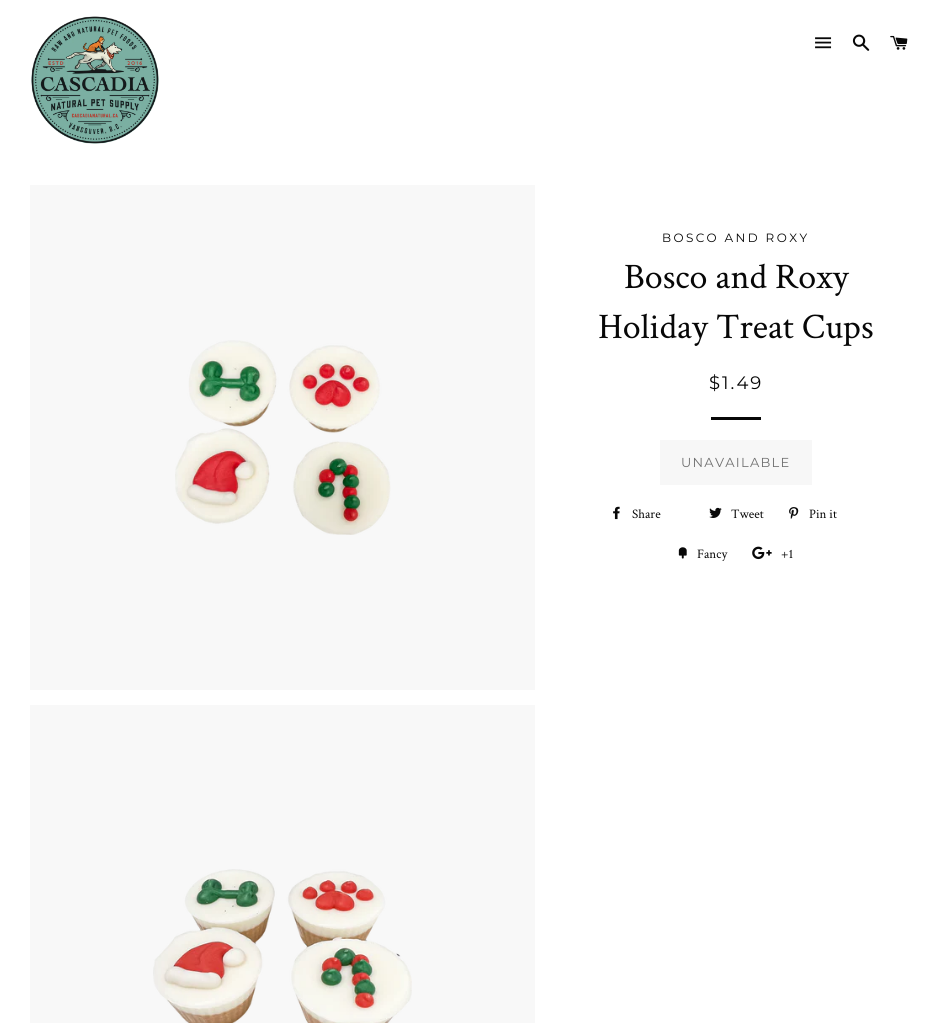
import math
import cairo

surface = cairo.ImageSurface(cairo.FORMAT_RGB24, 947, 1023)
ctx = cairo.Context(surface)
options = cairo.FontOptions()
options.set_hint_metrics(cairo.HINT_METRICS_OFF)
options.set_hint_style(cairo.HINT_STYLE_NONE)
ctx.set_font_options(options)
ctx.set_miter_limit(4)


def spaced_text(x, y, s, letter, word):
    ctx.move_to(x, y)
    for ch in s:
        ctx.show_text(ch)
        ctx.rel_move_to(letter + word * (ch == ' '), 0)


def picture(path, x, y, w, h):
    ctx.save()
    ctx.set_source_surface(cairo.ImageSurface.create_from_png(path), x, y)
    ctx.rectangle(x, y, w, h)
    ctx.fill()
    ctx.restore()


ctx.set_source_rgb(1, 1, 1)
ctx.paint()
picture("img1.png", 31, 16, 128, 128)
picture("img2.png", 815, 37, 17, 12)
picture("img3.png", 852, 34, 18, 17)
picture("img4.png", 890, 35, 18, 15)
ctx.set_source_rgb(0.969, 0.969, 0.969)
ctx.rectangle(30, 185, 505, 505)
ctx.fill()
picture("img5.png", 175, 340, 216, 195)
ctx.rectangle(30, 705, 505, 318)
ctx.fill()
picture("img6.png", 153, 869, 259, 154)
ctx.select_font_face("Montserrat Thin")
ctx.set_font_size(12)
ctx.set_source_rgb(0.031, 0.031, 0.031)
spaced_text(662, 242, "BOSCO AND ROXY", 2.4, 0)
ctx.select_font_face("Crimson Text")
ctx.set_font_size(36)
ctx.move_to(624, 288)
ctx.show_text("Bosco and Roxy")
ctx.move_to(598, 338)
ctx.show_text("Holiday Treat Cups")
ctx.select_font_face("Montserrat Thin")
ctx.set_font_size(18)
spaced_text(709, 389, "$1.49", 2, 0)
ctx.rectangle(711, 417, 50, 3)
ctx.fill()
ctx.set_source_rgb(0.965, 0.965, 0.965)
ctx.rectangle(660, 440, 152, 45)
ctx.fill()
ctx.set_font_size(13)
ctx.set_source_rgb(0.443, 0.443, 0.443)
spaced_text(681, 467, "UNAVAILABLE", 1.25, 0)
picture("img7.png", 613, 506, 7, 14)
ctx.select_font_face("Crimson Text")
ctx.set_source_rgb(0.031, 0.031, 0.031)
ctx.move_to(632, 518)
ctx.show_text("Share")
picture("img8.png", 709, 507, 13, 11)
ctx.move_to(731, 518)
ctx.show_text("Tweet")
picture("img9.png", 789, 507, 10, 12)
ctx.move_to(809, 518)
ctx.show_text("Pin it")
picture("img10.png", 678, 547, 9, 12)
ctx.move_to(697, 558)
ctx.show_text("Fancy")
picture("img11.png", 752, 546, 20, 14)
ctx.move_to(781, 558)
ctx.show_text("+1")
surface.write_to_png("page.png")
